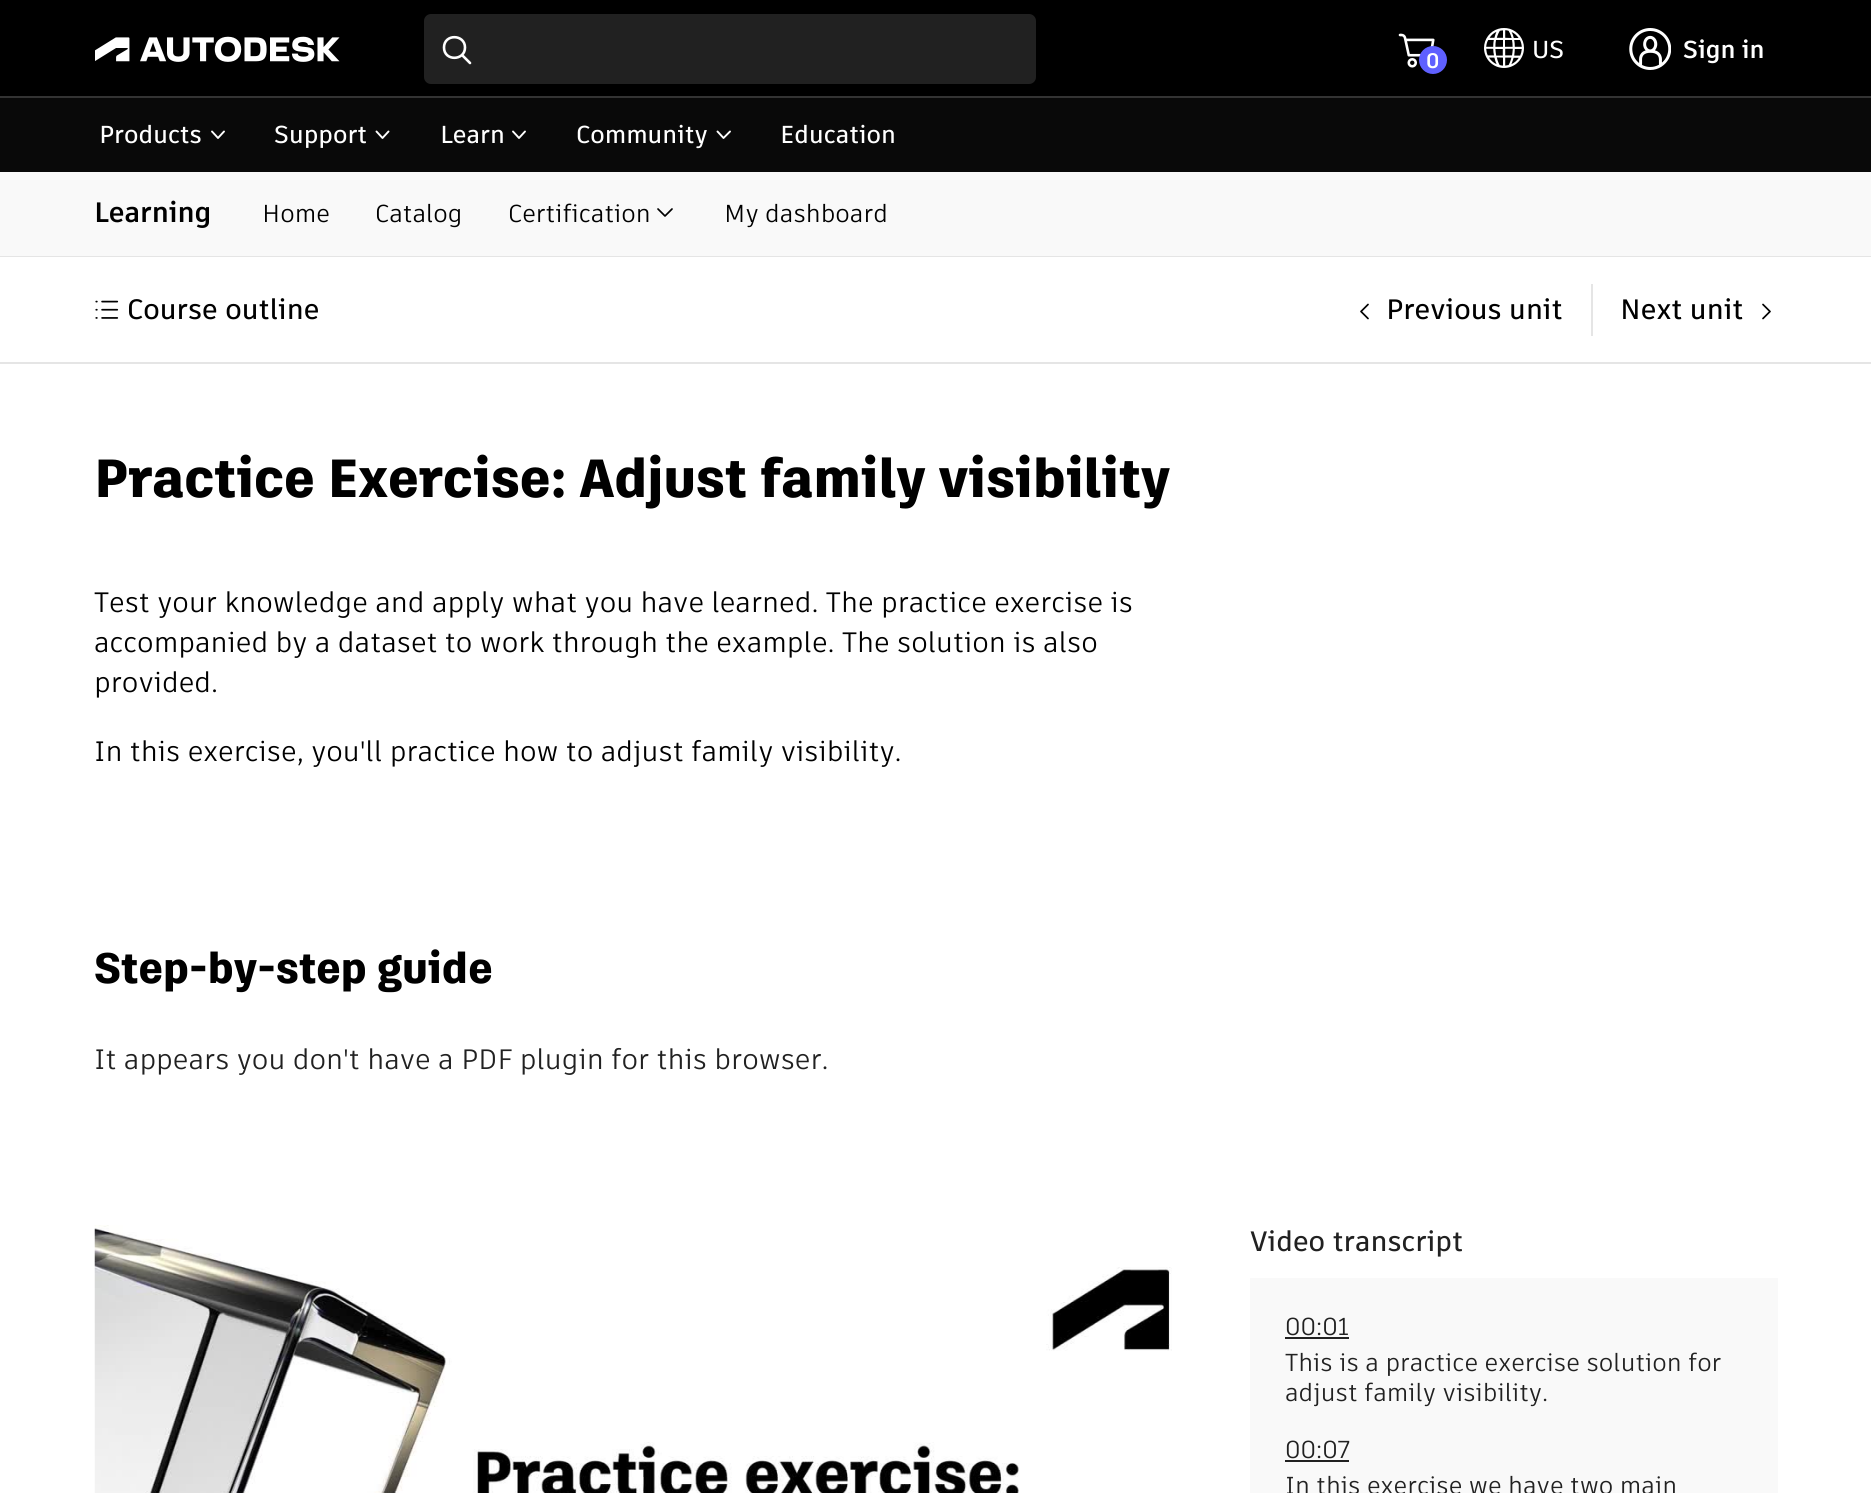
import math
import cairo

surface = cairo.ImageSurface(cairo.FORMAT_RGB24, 1871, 1493)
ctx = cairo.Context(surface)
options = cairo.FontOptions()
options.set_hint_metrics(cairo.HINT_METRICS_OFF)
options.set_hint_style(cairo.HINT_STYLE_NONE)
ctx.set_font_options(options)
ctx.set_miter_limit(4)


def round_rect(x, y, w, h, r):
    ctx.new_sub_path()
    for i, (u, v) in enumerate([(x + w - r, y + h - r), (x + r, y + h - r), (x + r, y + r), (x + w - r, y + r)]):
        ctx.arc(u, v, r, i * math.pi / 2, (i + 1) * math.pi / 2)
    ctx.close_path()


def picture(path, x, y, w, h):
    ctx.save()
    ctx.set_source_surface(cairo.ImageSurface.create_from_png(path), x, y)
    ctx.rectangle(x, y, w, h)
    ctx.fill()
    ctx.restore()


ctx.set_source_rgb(1, 1, 1)
ctx.paint()
ctx.set_source_rgb(0, 0, 0)
ctx.rectangle(0, 0, 1871, 96)
ctx.fill()
ctx.set_source_rgb(0.039, 0.039, 0.039)
ctx.rectangle(0, 98, 1871, 74)
ctx.fill()
picture("img1.png", 95, 36, 245, 26)
ctx.set_source_rgb(0.129, 0.129, 0.129)
round_rect(424, 14, 612, 70, 7)
ctx.fill()
ctx.new_path()
ctx.move_to(462, 55)
ctx.line_to(470, 63)
ctx.move_to(465, 47.5)
ctx.curve_to(465, 61, 444, 61.5, 444, 47.5)
ctx.curve_to(444, 33.5, 465, 34, 465, 47.5)
ctx.close_path()
ctx.set_source_rgb(1, 1, 1)
ctx.set_line_width(2.6)
ctx.set_line_cap(cairo.LINE_CAP_ROUND)
ctx.stroke()
picture("img2.png", 1484, 28, 40, 40)
ctx.select_font_face("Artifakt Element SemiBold")
ctx.set_font_size(24.5)
ctx.move_to(1532, 58)
ctx.show_text("US")
picture("img3.png", 1398, 33, 37, 35)
ctx.set_source_rgb(0.373, 0.376, 1)
ctx.arc(1433, 60, 14, 0, 2 * math.pi)
ctx.fill()
ctx.select_font_face("Artifakt Element", cairo.FONT_SLANT_NORMAL, cairo.FONT_WEIGHT_BOLD)
ctx.set_font_size(21)
ctx.set_source_rgb(1, 1, 1)
ctx.move_to(1426, 68)
ctx.show_text("0")
picture("img4.png", 1629, 28, 42, 42)
ctx.set_font_size(24.5)
ctx.move_to(1683, 58)
ctx.show_text("Sign in")
ctx.set_source_rgb(0.2, 0.2, 0.2)
ctx.new_path()
ctx.move_to(0, 96)
ctx.line_to(0, 98)
ctx.line_to(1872, 98)
ctx.line_to(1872, 168)
ctx.line_to(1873, 168)
ctx.line_to(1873, 96)
ctx.close_path()
ctx.fill()
ctx.select_font_face("Artifakt Element SemiBold")
ctx.set_source_rgb(1, 1, 1)
ctx.move_to(99, 143)
ctx.show_text("Products")
ctx.new_path()
ctx.move_to(224, 131.5)
ctx.line_to(218, 138)
ctx.line_to(212, 131.5)
ctx.set_line_width(1.9)
ctx.set_line_join(cairo.LINE_JOIN_ROUND)
ctx.stroke()
ctx.move_to(274, 143)
ctx.show_text("Support")
ctx.new_path()
ctx.move_to(388.5, 131.5)
ctx.line_to(382.5, 138)
ctx.line_to(376.5, 131.5)
ctx.stroke()
ctx.move_to(440, 143)
ctx.show_text("Learn")
ctx.new_path()
ctx.move_to(525, 131.5)
ctx.line_to(519, 138)
ctx.line_to(513, 131.5)
ctx.stroke()
ctx.move_to(576, 143)
ctx.show_text("Community")
ctx.new_path()
ctx.move_to(730, 131.5)
ctx.line_to(723.5, 138)
ctx.line_to(717.5, 131.5)
ctx.stroke()
ctx.move_to(780, 143)
ctx.show_text("Education")
ctx.set_source_rgb(0.976, 0.976, 0.976)
ctx.rectangle(0, 172, 1871, 84)
ctx.fill()
ctx.set_source_rgb(0.898, 0.898, 0.898)
ctx.rectangle(0, 256, 1871, 1)
ctx.fill()
ctx.select_font_face("Artifakt Element", cairo.FONT_SLANT_NORMAL, cairo.FONT_WEIGHT_BOLD)
ctx.set_font_size(28)
ctx.set_source_rgb(0, 0, 0)
ctx.move_to(94, 222)
ctx.show_text("Learning")
ctx.select_font_face("Artifakt Element")
ctx.set_font_size(24.5)
ctx.move_to(262, 222)
ctx.show_text("Home")
ctx.move_to(375, 222)
ctx.show_text("Catalog")
ctx.move_to(508, 222)
ctx.show_text("Certification")
ctx.new_path()
ctx.move_to(672, 209)
ctx.line_to(665, 216)
ctx.line_to(658, 209)
ctx.set_line_width(1.7)
ctx.stroke()
ctx.move_to(724, 222)
ctx.show_text("My dashboard")
ctx.set_source_rgb(0.898, 0.898, 0.898)
ctx.rectangle(0, 362, 1871, 2)
ctx.fill()
picture("img5.png", 95, 300, 24, 19)
ctx.select_font_face("Artifakt Element SemiBold")
ctx.set_font_size(28)
ctx.set_source_rgb(0, 0, 0)
ctx.move_to(127, 319)
ctx.show_text("Course outline")
ctx.new_path()
ctx.move_to(1368, 304.5)
ctx.line_to(1361, 311.5)
ctx.line_to(1368, 318.5)
ctx.stroke()
ctx.move_to(1386, 319)
ctx.show_text("Previous unit")
ctx.set_source_rgb(0.898, 0.898, 0.898)
ctx.rectangle(1591, 284, 2, 52)
ctx.fill()
ctx.set_source_rgb(0, 0, 0)
ctx.move_to(1620, 319)
ctx.show_text("Next unit")
ctx.new_path()
ctx.move_to(1763, 304.5)
ctx.line_to(1770, 311.5)
ctx.line_to(1763, 318.5)
ctx.stroke()
ctx.select_font_face("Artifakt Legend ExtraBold")
ctx.set_font_size(53.5)
ctx.move_to(94, 497)
ctx.show_text("Practice Exercise: Adjust family visibility")
ctx.select_font_face("Artifakt Element")
ctx.set_font_size(28)
ctx.move_to(94, 612)
ctx.show_text("Test your knowledge and apply what you have learned. The practice exercise is")
ctx.move_to(94, 652)
ctx.show_text("accompanied by a dataset to work through the example. The solution is also")
ctx.move_to(94, 692)
ctx.show_text("provided.")
ctx.move_to(94, 761)
ctx.show_text("In this exercise, you'll practice how to adjust family visibility.")
ctx.select_font_face("Artifakt Legend ExtraBold")
ctx.set_font_size(42.5)
ctx.move_to(94, 983)
ctx.show_text("Step-by-step guide")
ctx.select_font_face("Artifakt Element")
ctx.set_font_size(28)
ctx.set_source_rgb(0.129, 0.129, 0.129)
ctx.move_to(94, 1069)
ctx.show_text("It appears you don't have a PDF plugin for this browser.")
picture("img6.png", 94, 1225, 1078, 268)
ctx.select_font_face("Artifakt Element SemiBold")
ctx.move_to(1250, 1251)
ctx.show_text("Video transcript")
ctx.set_source_rgb(0.976, 0.976, 0.976)
ctx.rectangle(1250, 1278, 528, 215)
ctx.fill()
ctx.select_font_face("Artifakt Element")
ctx.set_font_size(24.5)
ctx.set_source_rgb(0.129, 0.129, 0.129)
ctx.move_to(1285, 1335)
ctx.show_text("00:01")
ctx.rectangle(1285, 1337, 64, 2)
ctx.fill()
ctx.move_to(1285, 1371)
ctx.show_text("This is a practice exercise solution for")
ctx.move_to(1285, 1401)
ctx.show_text("adjust family visibility.")
ctx.move_to(1285, 1458)
ctx.show_text("00:07")
ctx.rectangle(1285, 1460, 64, 2)
ctx.fill()
ctx.move_to(1285, 1494)
ctx.show_text("In this exercise we have two main")
surface.write_to_png("page.png")
